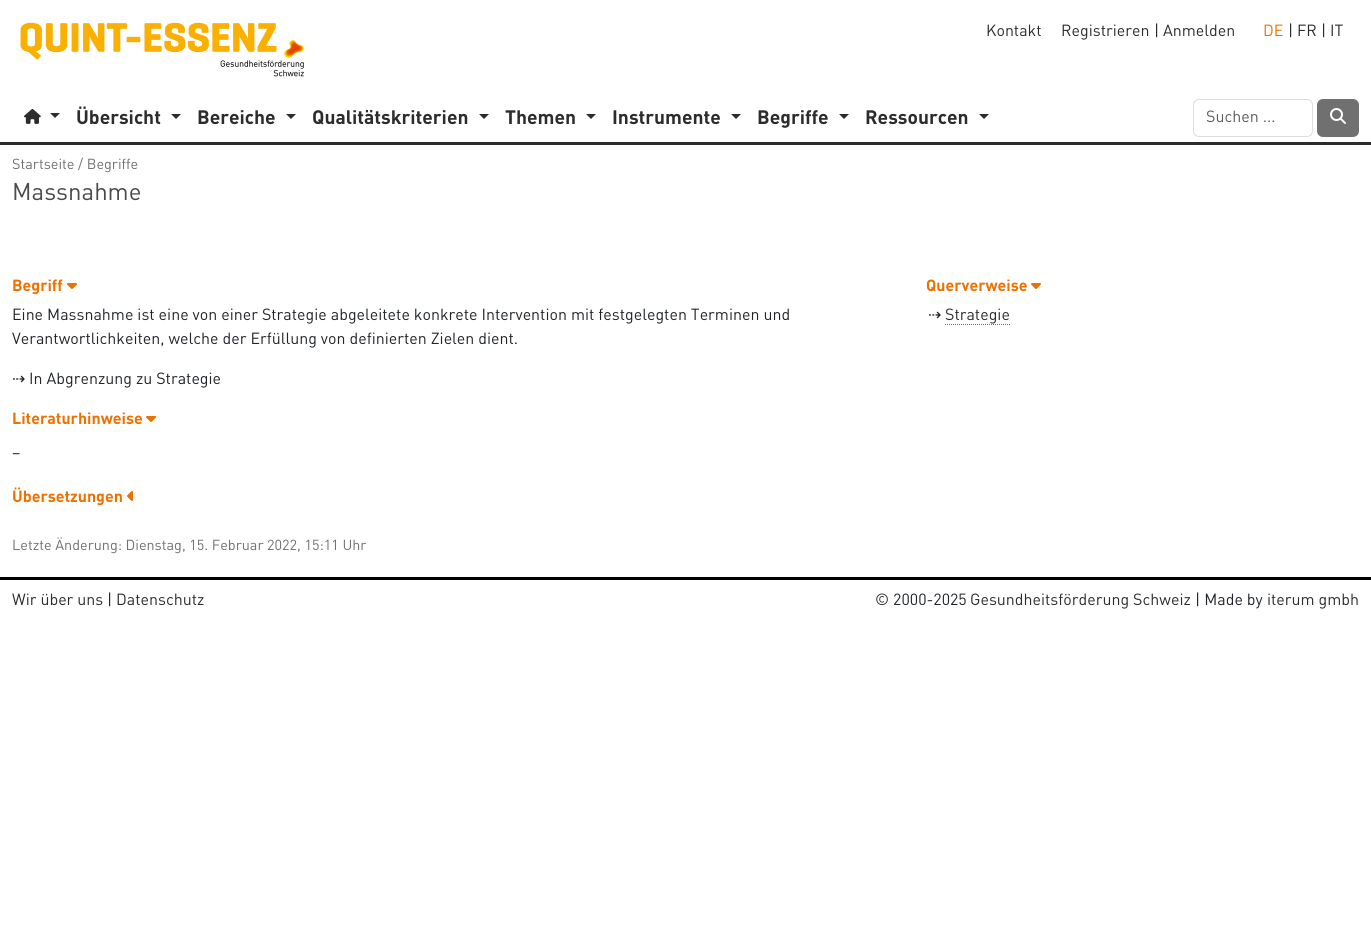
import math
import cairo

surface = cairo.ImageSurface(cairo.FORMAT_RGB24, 1371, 945)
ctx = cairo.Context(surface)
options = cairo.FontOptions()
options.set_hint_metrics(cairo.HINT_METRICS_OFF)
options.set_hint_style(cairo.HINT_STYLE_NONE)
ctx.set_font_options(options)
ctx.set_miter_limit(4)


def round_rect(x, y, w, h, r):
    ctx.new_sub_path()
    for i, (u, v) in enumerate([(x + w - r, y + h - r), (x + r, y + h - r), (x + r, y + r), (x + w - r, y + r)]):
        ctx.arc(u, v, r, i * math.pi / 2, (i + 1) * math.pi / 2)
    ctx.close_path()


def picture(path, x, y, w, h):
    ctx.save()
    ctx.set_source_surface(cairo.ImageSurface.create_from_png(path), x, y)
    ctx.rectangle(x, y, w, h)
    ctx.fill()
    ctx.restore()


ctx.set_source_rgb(1, 1, 1)
ctx.paint()
picture("img1.png", 20, 22, 284, 55)
ctx.select_font_face("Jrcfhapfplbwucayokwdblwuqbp")
ctx.set_font_size(16)
ctx.set_source_rgb(0.173, 0.173, 0.173)
ctx.move_to(986, 36)
ctx.show_text("Kontakt")
ctx.move_to(1061, 36)
ctx.show_text("Registrieren")
ctx.set_source_rgb(0.129, 0.145, 0.161)
ctx.move_to(1154, 36)
ctx.show_text("|")
ctx.set_source_rgb(0.173, 0.173, 0.173)
ctx.move_to(1163, 36)
ctx.show_text("Anmelden")
ctx.set_source_rgb(0.922, 0.443, 0)
ctx.move_to(1263, 36)
ctx.show_text("DE")
ctx.set_source_rgb(0.129, 0.145, 0.161)
ctx.move_to(1288, 36)
ctx.show_text("|")
ctx.set_source_rgb(0.173, 0.173, 0.173)
ctx.move_to(1297, 36)
ctx.show_text("FR")
ctx.set_source_rgb(0.129, 0.145, 0.161)
ctx.move_to(1321, 36)
ctx.show_text("|")
ctx.set_source_rgb(0.173, 0.173, 0.173)
ctx.move_to(1330, 36)
ctx.show_text("IT")
picture("img2.png", 24, 108, 17, 16)
ctx.new_path()
ctx.move_to(50, 113)
ctx.line_to(60, 113)
ctx.line_to(55, 118)
ctx.close_path()
ctx.fill()
ctx.select_font_face("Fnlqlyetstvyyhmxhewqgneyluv", cairo.FONT_SLANT_NORMAL, cairo.FONT_WEIGHT_BOLD)
ctx.set_font_size(19.25)
ctx.move_to(76, 124)
ctx.show_text("Übersicht")
ctx.new_path()
ctx.move_to(171, 114)
ctx.line_to(181, 114)
ctx.line_to(176, 119)
ctx.close_path()
ctx.fill()
ctx.move_to(197, 124)
ctx.show_text("Bereiche")
ctx.new_path()
ctx.move_to(286, 114)
ctx.line_to(296, 114)
ctx.line_to(291, 119)
ctx.close_path()
ctx.fill()
ctx.move_to(312, 124)
ctx.show_text("Qualitätskriterien")
ctx.new_path()
ctx.move_to(479, 114)
ctx.line_to(489, 114)
ctx.line_to(484, 119)
ctx.close_path()
ctx.fill()
ctx.move_to(505, 124)
ctx.show_text("Themen")
ctx.new_path()
ctx.move_to(586, 114)
ctx.line_to(596, 114)
ctx.line_to(591, 119)
ctx.close_path()
ctx.fill()
ctx.move_to(612, 124)
ctx.show_text("Instrumente")
ctx.new_path()
ctx.move_to(731, 114)
ctx.line_to(741, 114)
ctx.line_to(736, 119)
ctx.close_path()
ctx.fill()
ctx.move_to(757, 124)
ctx.show_text("Begriffe")
ctx.new_path()
ctx.move_to(839, 114)
ctx.line_to(849, 114)
ctx.line_to(844, 119)
ctx.close_path()
ctx.fill()
ctx.move_to(865, 124)
ctx.show_text("Ressourcen")
ctx.new_path()
ctx.move_to(979, 114)
ctx.line_to(989, 114)
ctx.line_to(984, 119)
ctx.close_path()
ctx.fill()
round_rect(1193.5, 99.5, 119, 37, 5.5)
ctx.set_source_rgb(0.867, 0.867, 0.867)
ctx.set_line_width(1)
ctx.stroke()
ctx.select_font_face("Jrcfhapfplbwucayokwdblwuqbp")
ctx.set_font_size(16)
ctx.set_source_rgb(0.349, 0.361, 0.373)
ctx.move_to(1206, 122)
ctx.show_text("Suchen ...")
ctx.set_source_rgb(0.439, 0.439, 0.439)
round_rect(1317, 99, 42, 38, 6)
ctx.fill()
picture("img3.png", 1330, 108, 16, 16)
ctx.set_source_rgb(0.173, 0.173, 0.173)
ctx.rectangle(0, 142, 1371, 3)
ctx.fill()
ctx.set_font_size(14.4)
ctx.set_source_rgb(0.439, 0.439, 0.439)
ctx.move_to(12, 169)
ctx.show_text("Startseite / Begriffe")
ctx.set_font_size(24)
ctx.set_source_rgb(0.29, 0.29, 0.29)
ctx.move_to(12, 200)
ctx.show_text("Massnahme")
ctx.select_font_face("Fnlqlyetstvyyhmxhewqgneyluv", cairo.FONT_SLANT_NORMAL, cairo.FONT_WEIGHT_BOLD)
ctx.set_font_size(16)
ctx.set_source_rgb(0.922, 0.443, 0)
ctx.move_to(12, 291)
ctx.show_text("Begriff")
picture("img4.png", 67, 283, 10, 6)
ctx.select_font_face("Jrcfhapfplbwucayokwdblwuqbp")
ctx.set_source_rgb(0.129, 0.145, 0.161)
ctx.move_to(12, 320)
ctx.show_text("Eine Massnahme ist eine von einer Strategie abgeleitete konkrete Intervention mit festgelegten Terminen und")
ctx.move_to(12, 344)
ctx.show_text("Verantwortlichkeiten, welche der Erfüllung von definierten Zielen dient.")
ctx.select_font_face("DejaVu Sans")
ctx.move_to(12, 384)
ctx.show_text("⇢")
ctx.select_font_face("Jrcfhapfplbwucayokwdblwuqbp")
ctx.move_to(29, 384)
ctx.show_text("In Abgrenzung zu Strategie")
ctx.select_font_face("Fnlqlyetstvyyhmxhewqgneyluv", cairo.FONT_SLANT_NORMAL, cairo.FONT_WEIGHT_BOLD)
ctx.set_source_rgb(0.922, 0.443, 0)
ctx.move_to(12, 424)
ctx.show_text("Literaturhinweise")
picture("img4.png", 146, 416, 10, 6)
ctx.select_font_face("Jrcfhapfplbwucayokwdblwuqbp")
ctx.set_source_rgb(0.129, 0.145, 0.161)
ctx.move_to(12, 458)
ctx.show_text("–")
ctx.select_font_face("Fnlqlyetstvyyhmxhewqgneyluv", cairo.FONT_SLANT_NORMAL, cairo.FONT_WEIGHT_BOLD)
ctx.set_source_rgb(0.922, 0.443, 0)
ctx.move_to(12, 502)
ctx.show_text("Übersetzungen")
picture("img5.png", 127, 491, 6, 10)
ctx.move_to(926, 291)
ctx.show_text("Querverweise")
picture("img4.png", 1031, 283, 10, 6)
ctx.select_font_face("DejaVu Sans")
ctx.set_source_rgb(0.129, 0.145, 0.161)
ctx.move_to(928, 320)
ctx.show_text("⇢")
ctx.select_font_face("Jrcfhapfplbwucayokwdblwuqbp")
ctx.set_source_rgb(0.173, 0.173, 0.173)
ctx.move_to(945, 320)
ctx.show_text("Strategie")
ctx.new_path()
ctx.move_to(945, 324.5)
ctx.line_to(1010, 324.5)
ctx.set_source_rgb(0.439, 0.439, 0.439)
ctx.set_dash([1, 1])
ctx.stroke()
ctx.set_font_size(14.4)
ctx.move_to(12, 550)
ctx.show_text("Letzte Änderung: Dienstag, 15. Februar 2022, 15:11 Uhr")
ctx.set_source_rgb(0, 0, 0)
ctx.rectangle(0, 577, 1371, 3)
ctx.fill()
ctx.set_font_size(16)
ctx.set_source_rgb(0.173, 0.173, 0.173)
ctx.move_to(12, 605)
ctx.show_text("Wir über uns")
ctx.set_source_rgb(0.129, 0.145, 0.161)
ctx.move_to(107, 605)
ctx.show_text("|")
ctx.set_source_rgb(0.173, 0.173, 0.173)
ctx.move_to(116, 605)
ctx.show_text("Datenschutz")
ctx.set_source_rgb(0.129, 0.145, 0.161)
ctx.move_to(875, 605)
ctx.show_text("© 2000-2025")
ctx.set_source_rgb(0.173, 0.173, 0.173)
ctx.move_to(970, 605)
ctx.show_text("Gesundheitsförderung Schweiz")
ctx.set_source_rgb(0.129, 0.145, 0.161)
ctx.move_to(1195, 605)
ctx.show_text("| Made by")
ctx.set_source_rgb(0.173, 0.173, 0.173)
ctx.move_to(1267, 605)
ctx.show_text("iterum gmbh")
surface.write_to_png("page.png")
